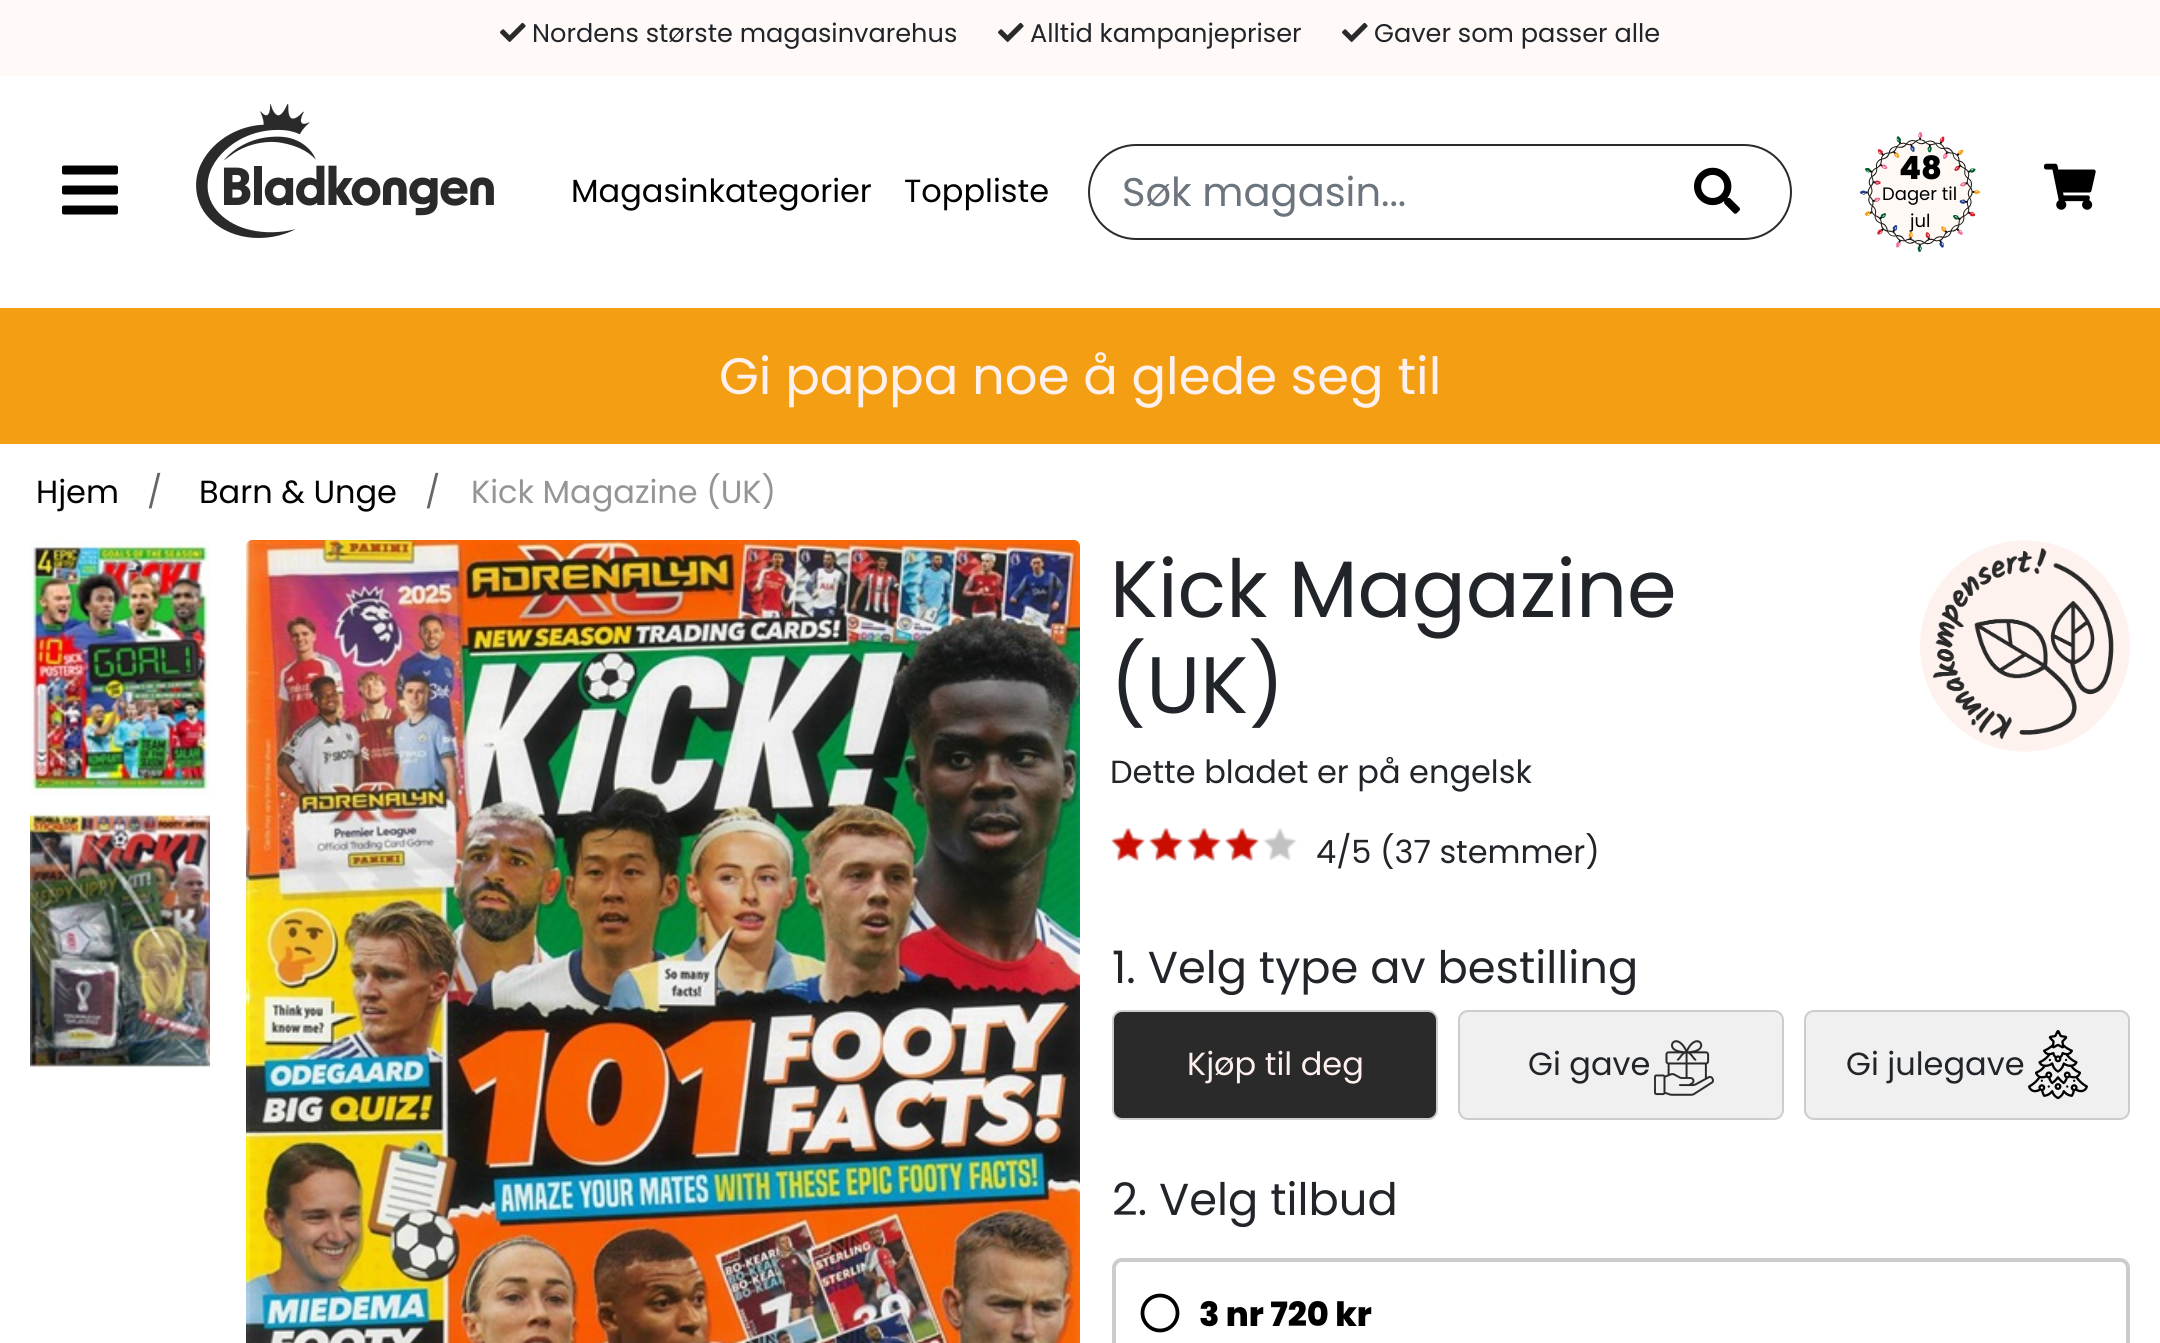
import math
import cairo

surface = cairo.ImageSurface(cairo.FORMAT_RGB24, 2160, 1343)
ctx = cairo.Context(surface)
options = cairo.FontOptions()
options.set_hint_metrics(cairo.HINT_METRICS_OFF)
options.set_hint_style(cairo.HINT_STYLE_NONE)
ctx.set_font_options(options)
ctx.set_miter_limit(4)


def round_rect(x, y, w, h, r):
    ctx.new_sub_path()
    for i, (u, v) in enumerate([(x + w - r, y + h - r), (x + r, y + h - r), (x + r, y + r), (x + w - r, y + r)]):
        ctx.arc(u, v, r, i * math.pi / 2, (i + 1) * math.pi / 2)
    ctx.close_path()


def picture(path, x, y, w, h):
    ctx.save()
    ctx.set_source_surface(cairo.ImageSurface.create_from_png(path), x, y)
    ctx.rectangle(x, y, w, h)
    ctx.fill()
    ctx.restore()


ctx.set_source_rgb(1, 1, 1)
ctx.paint()
ctx.set_source_rgb(1, 0.976, 0.965)
ctx.rectangle(0, 0, 2160, 76)
ctx.fill()
picture("img1.png", 500, 22, 26, 20)
ctx.select_font_face("Poppins")
ctx.set_font_size(25.6)
ctx.set_source_rgb(0.129, 0.145, 0.161)
ctx.move_to(532, 42)
ctx.show_text("Nordens største magasinvarehus")
picture("img1.png", 998, 22, 26, 20)
ctx.move_to(1030, 42)
ctx.show_text("Alltid kampanjepriser")
picture("img1.png", 1342, 22, 26, 20)
ctx.move_to(1374, 42)
ctx.show_text("Gaver som passer alle")
picture("img2.png", 62, 165, 56, 50)
picture("img3.png", 196, 104, 298, 134)
ctx.set_font_size(32)
ctx.set_source_rgb(0, 0, 0)
ctx.move_to(571, 202)
ctx.show_text("Magasinkategorier")
ctx.move_to(904, 202)
ctx.show_text("Toppliste")
round_rect(1089, 145, 702, 94, 47)
ctx.set_source_rgb(0.165, 0.165, 0.165)
ctx.stroke()
ctx.set_font_size(40)
ctx.set_source_rgb(0.424, 0.459, 0.49)
ctx.move_to(1122, 206)
ctx.show_text("Søk magasin...")
picture("img4.png", 1694, 167, 46, 47)
picture("img5.png", 1860, 132, 120, 120)
ctx.select_font_face("Poppins ExtraBold")
ctx.set_font_size(32)
ctx.set_source_rgb(0, 0, 0)
ctx.move_to(1899, 179)
ctx.show_text("48")
ctx.select_font_face("Poppins")
ctx.set_font_size(18)
ctx.move_to(1882, 200)
ctx.show_text("Dager til")
ctx.move_to(1910, 227)
ctx.show_text("jul")
picture("img6.png", 2044, 163, 52, 47)
ctx.set_source_rgb(0.953, 0.62, 0.078)
ctx.rectangle(0, 308, 2160, 136)
ctx.fill()
ctx.set_font_size(51.25)
ctx.set_source_rgb(0.996, 0.941, 0.922)
ctx.move_to(719, 394)
ctx.show_text("Gi pappa noe å glede seg til")
ctx.set_font_size(32)
ctx.set_source_rgb(0, 0, 0)
ctx.move_to(36, 503)
ctx.show_text("Hjem")
ctx.set_source_rgb(0.4, 0.4, 0.4)
ctx.move_to(147, 503)
ctx.show_text("/")
ctx.set_source_rgb(0, 0, 0)
ctx.move_to(199, 503)
ctx.show_text("Barn & Unge")
ctx.set_source_rgb(0.4, 0.4, 0.4)
ctx.move_to(425, 503)
ctx.show_text("/")
ctx.set_source_rgb(0.584, 0.584, 0.584)
ctx.move_to(471, 503)
ctx.show_text("Kick Magazine (UK)")
picture("img7.png", 30, 540, 180, 256)
picture("img8.png", 30, 812, 180, 256)
picture("img9.png", 246, 540, 834, 803)
ctx.set_font_size(80)
ctx.set_source_rgb(0.129, 0.145, 0.161)
ctx.move_to(1110, 617)
ctx.show_text("Kick Magazine")
ctx.move_to(1110, 713)
ctx.show_text("(UK)")
ctx.set_font_size(32)
ctx.move_to(1110, 783)
ctx.show_text("Dette bladet er på engelsk")
picture("img10.png", 1111, 828, 186, 34)
picture("img11.png", 1111, 828, 148, 33)
ctx.move_to(1316, 863)
ctx.show_text("4/5 (37 stemmer)")
picture("img12.png", 1920, 540, 210, 212)
ctx.set_font_size(44.75)
ctx.move_to(1112, 983)
ctx.show_text("1. Velg type av bestilling")
ctx.set_source_rgb(0.165, 0.165, 0.165)
round_rect(1113, 1011, 324, 108, 9)
ctx.fill_preserve()
ctx.set_source_rgb(0.8, 0.8, 0.8)
ctx.stroke()
ctx.set_font_size(32)
ctx.set_source_rgb(0.996, 0.941, 0.922)
ctx.move_to(1187, 1075)
ctx.show_text("Kjøp til deg")
ctx.set_source_rgb(0.941, 0.941, 0.941)
round_rect(1459, 1011, 324, 108, 9)
ctx.fill_preserve()
ctx.set_source_rgb(0.8, 0.8, 0.8)
ctx.stroke()
ctx.set_source_rgb(0.129, 0.145, 0.161)
ctx.move_to(1528, 1075)
ctx.show_text("Gi gave")
picture("img13.png", 1654, 1040, 60, 56)
ctx.set_source_rgb(0.941, 0.941, 0.941)
round_rect(1805, 1011, 324, 108, 9)
ctx.fill_preserve()
ctx.set_source_rgb(0.8, 0.8, 0.8)
ctx.stroke()
ctx.set_source_rgb(0.129, 0.145, 0.161)
ctx.move_to(1846, 1075)
ctx.show_text("Gi julegave")
picture("img14.png", 2028, 1030, 60, 70)
ctx.set_font_size(44.75)
ctx.move_to(1112, 1215)
ctx.show_text("2. Velg tilbud")
round_rect(1114, 1260, 1014, 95, 8)
ctx.set_source_rgb(0.8, 0.8, 0.8)
ctx.set_line_width(4)
ctx.stroke()
picture("img15.png", 1140, 1293, 40, 40)
ctx.select_font_face("Poppins ExtraBold")
ctx.set_font_size(33.5)
ctx.set_source_rgb(0, 0, 0)
ctx.move_to(1199, 1326)
ctx.show_text("3 nr 720 kr")
surface.write_to_png("page.png")
